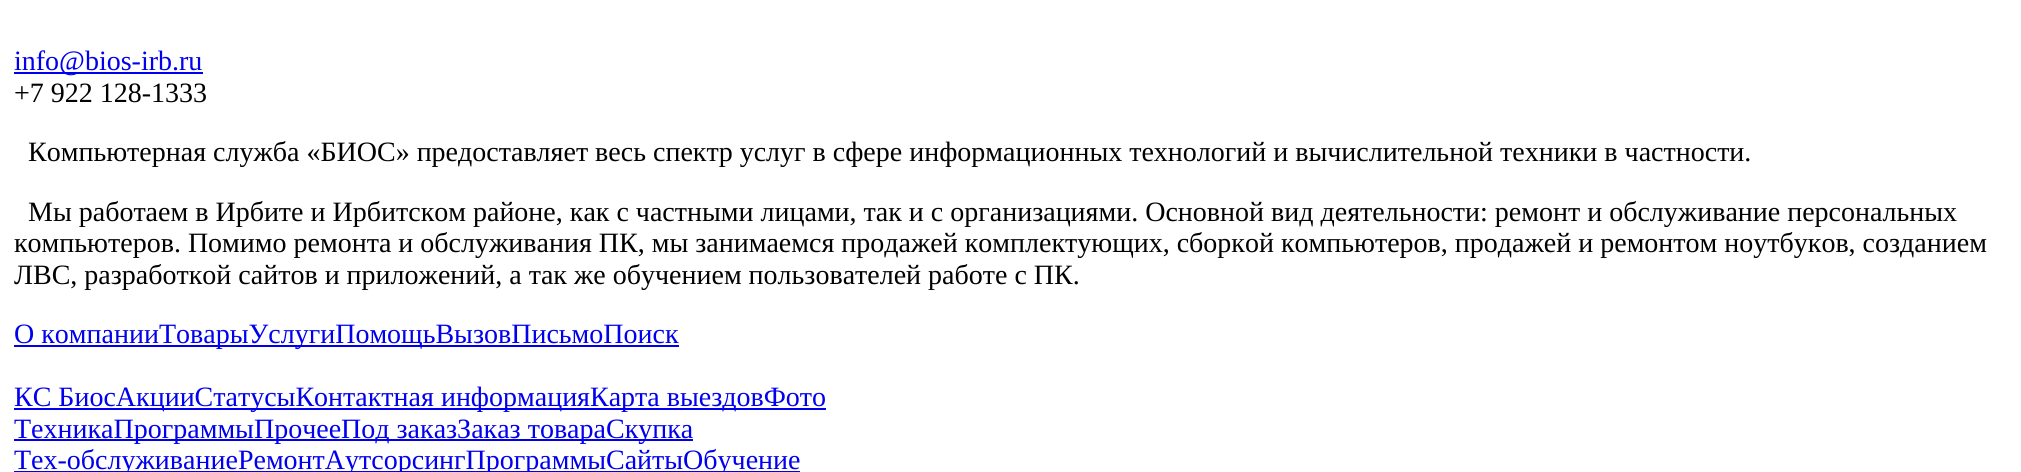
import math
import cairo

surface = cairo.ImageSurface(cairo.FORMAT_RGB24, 2021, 472)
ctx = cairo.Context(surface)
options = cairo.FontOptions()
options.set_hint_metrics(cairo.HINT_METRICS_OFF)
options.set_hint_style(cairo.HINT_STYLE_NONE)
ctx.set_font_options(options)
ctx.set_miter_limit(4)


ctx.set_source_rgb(1, 1, 1)
ctx.paint()
ctx.set_source_rgb(0, 0, 0.933)
ctx.rectangle(14, 72, 189, 2)
ctx.fill()
ctx.select_font_face("Liberation Serif")
ctx.set_font_size(28)
ctx.move_to(14, 70)
ctx.show_text("info@bios-irb.ru")
ctx.set_source_rgb(0, 0, 0)
ctx.move_to(14, 102)
ctx.show_text("+7 922 128-1333")
ctx.move_to(28, 161)
ctx.show_text("Компьютерная служба «БИОС» предоставляет весь спектр услуг в сфере информационных технологий и вычислительной техники в частности.")
ctx.move_to(28, 221)
ctx.show_text("Мы работаем в Ирбите и Ирбитском районе, как с частными лицами, так и с организациями. Основной вид деятельности: ремонт и обслуживание персональных")
ctx.move_to(14, 252)
ctx.show_text("компьютеров. Помимо ремонта и обслуживания ПК, мы занимаемся продажей комплектующих, сборкой компьютеров, продажей и ремонтом ноутбуков, созданием")
ctx.move_to(14, 284)
ctx.show_text("ЛВС, разработкой сайтов и приложений, а так же обучением пользователей работе с ПК.")
ctx.set_source_rgb(0, 0, 0.933)
ctx.rectangle(14, 345, 665, 2)
ctx.fill()
ctx.move_to(14, 343)
ctx.show_text("О компанииТоварыУслугиПомощьВызовПисьмоПоиск")
ctx.rectangle(14, 408, 812, 2)
ctx.fill()
ctx.move_to(14, 406)
ctx.show_text("КС БиосАкцииСтатусыКонтактная информацияКарта выездовФото")
ctx.rectangle(14, 439, 679, 2)
ctx.fill()
ctx.move_to(14, 438)
ctx.show_text("ТехникаПрограммыПрочееПод заказЗаказ товараСкупка")
ctx.rectangle(14, 471, 786, 1)
ctx.fill()
ctx.move_to(14, 469)
ctx.show_text("Тех-обслуживаниеРемонтАутсорсингПрограммыСайтыОбучение")
surface.write_to_png("page.png")
